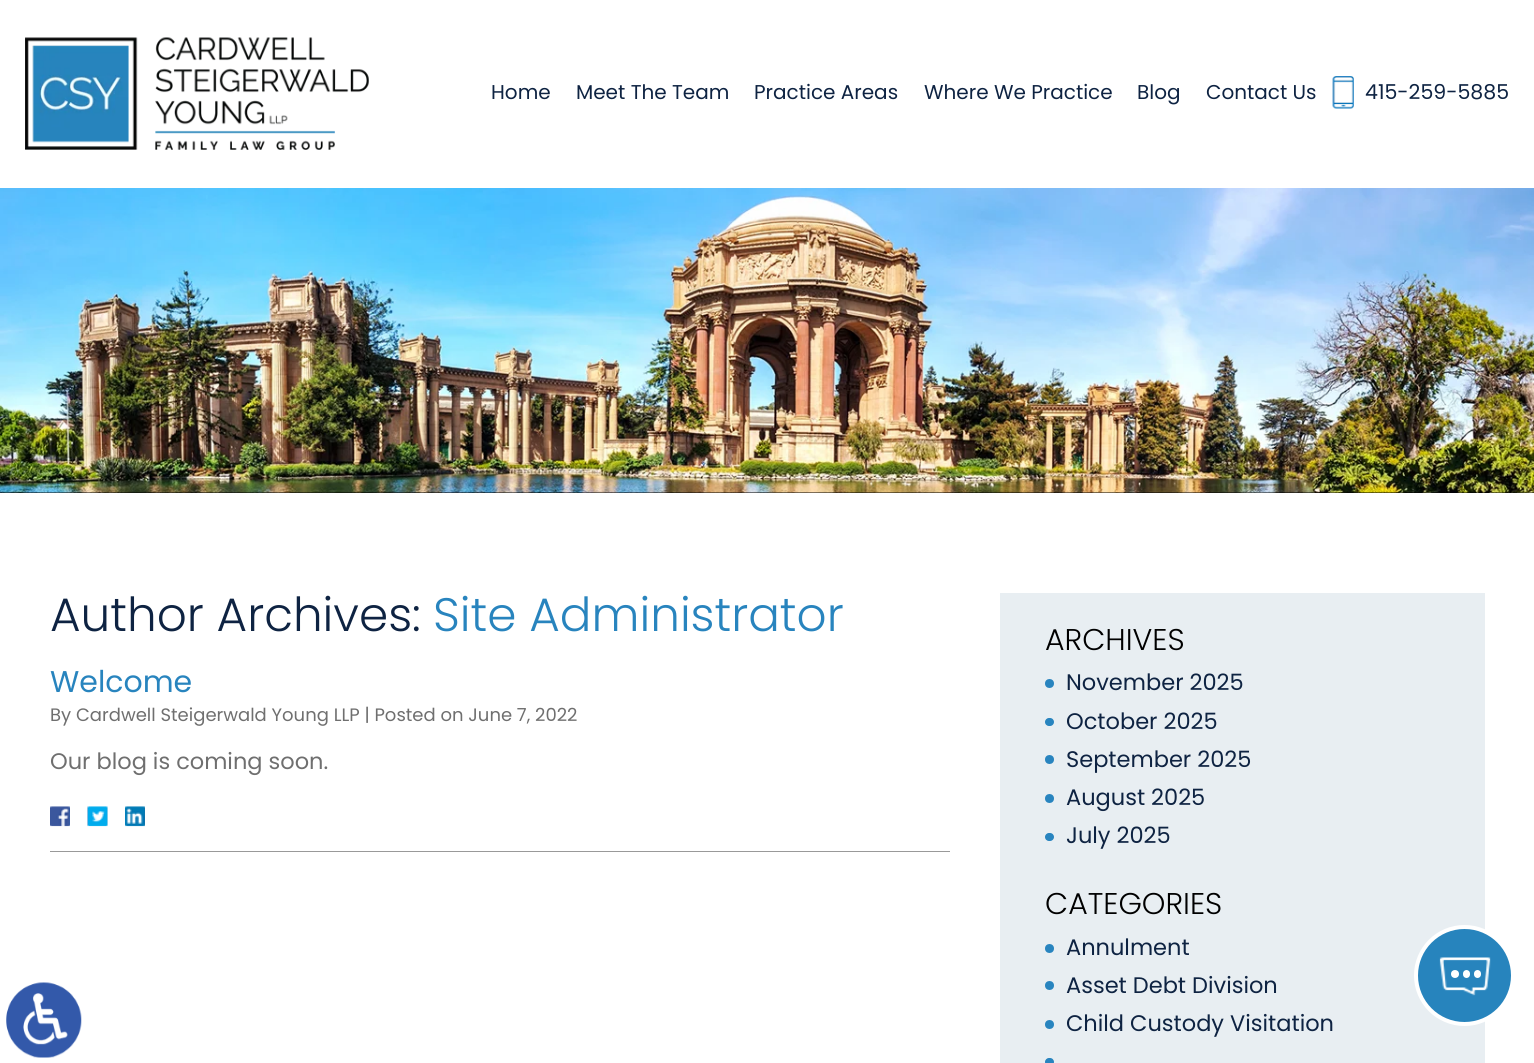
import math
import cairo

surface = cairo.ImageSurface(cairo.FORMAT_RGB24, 1534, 1063)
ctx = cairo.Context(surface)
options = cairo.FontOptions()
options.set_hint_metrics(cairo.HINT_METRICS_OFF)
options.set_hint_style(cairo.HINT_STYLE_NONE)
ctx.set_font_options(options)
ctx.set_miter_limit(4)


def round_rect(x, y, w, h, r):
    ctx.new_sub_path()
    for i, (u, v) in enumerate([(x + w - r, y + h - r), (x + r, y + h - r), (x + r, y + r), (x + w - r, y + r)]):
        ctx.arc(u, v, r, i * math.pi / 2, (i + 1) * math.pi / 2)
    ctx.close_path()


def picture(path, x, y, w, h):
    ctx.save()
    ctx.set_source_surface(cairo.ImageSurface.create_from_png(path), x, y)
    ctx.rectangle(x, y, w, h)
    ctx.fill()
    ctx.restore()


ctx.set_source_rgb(1, 1, 1)
ctx.paint()
ctx.select_font_face("Poppins")
ctx.set_font_size(20)
ctx.set_source_rgb(0.055, 0.137, 0.259)
ctx.move_to(491, 99)
ctx.show_text("Home")
ctx.move_to(576, 99)
ctx.show_text("Meet The Team")
ctx.move_to(754, 99)
ctx.show_text("Practice Areas")
ctx.move_to(924, 99)
ctx.show_text("Where We Practice")
ctx.move_to(1137, 99)
ctx.show_text("Blog")
ctx.move_to(1206, 99)
ctx.show_text("Contact Us")
picture("img1.png", 25, 37, 344, 113)
picture("img2.png", 1332, 76, 22, 33)
ctx.set_font_size(20.5)
ctx.move_to(1365, 99)
ctx.show_text("415-259-5885")
ctx.set_source_rgb(0, 0, 0)
ctx.rectangle(0, 492, 1534, 1)
ctx.fill()
picture("img3.png", 0, 188, 1534, 305)
ctx.select_font_face("Poppins Light")
ctx.set_font_size(46.9)
ctx.set_source_rgb(0.055, 0.137, 0.259)
ctx.move_to(50, 631)
ctx.show_text("Author Archives:")
ctx.set_source_rgb(0.157, 0.518, 0.745)
ctx.move_to(433, 631)
ctx.show_text("Site Administrator")
ctx.set_source_rgb(0.6, 0.6, 0.6)
ctx.rectangle(50, 851, 900, 1)
ctx.fill()
ctx.select_font_face("Poppins")
ctx.set_font_size(30)
ctx.set_source_rgb(0.157, 0.518, 0.745)
ctx.move_to(50, 692)
ctx.show_text("Welcome")
ctx.set_font_size(18)
ctx.set_source_rgb(0.435, 0.435, 0.435)
ctx.move_to(50, 721)
ctx.show_text("By Cardwell Steigerwald Young LLP | Posted on June 7, 2022")
ctx.set_font_size(22.5)
ctx.move_to(50, 769)
ctx.show_text("Our blog is coming soon.")
picture("img4.png", 50, 806, 20, 21)
picture("img5.png", 87, 806, 21, 21)
picture("img6.png", 125, 806, 20, 21)
ctx.set_source_rgb(0.91, 0.933, 0.949)
ctx.rectangle(1000, 593, 485, 470)
ctx.fill()
ctx.select_font_face("Poppins Light")
ctx.set_font_size(30)
ctx.set_source_rgb(0, 0, 0)
ctx.move_to(1045, 650)
ctx.show_text("ARCHIVES")
ctx.set_source_rgb(0.157, 0.518, 0.749)
ctx.new_path()
ctx.arc(1049.5, 683.5, 4.5, 0, 2 * math.pi)
ctx.fill()
ctx.select_font_face("Poppins")
ctx.set_font_size(22.5)
ctx.set_source_rgb(0.055, 0.137, 0.259)
ctx.move_to(1066, 690)
ctx.show_text("November 2025")
ctx.set_source_rgb(0.157, 0.518, 0.749)
round_rect(1045, 718, 9, 8, 4)
ctx.fill()
ctx.set_source_rgb(0.055, 0.137, 0.259)
ctx.move_to(1066, 729)
ctx.show_text("October 2025")
ctx.set_source_rgb(0.157, 0.518, 0.749)
ctx.new_path()
ctx.arc(1049.5, 759.5, 4.5, 0, 2 * math.pi)
ctx.fill()
ctx.set_source_rgb(0.055, 0.137, 0.259)
ctx.move_to(1066, 767)
ctx.show_text("September 2025")
ctx.set_source_rgb(0.157, 0.518, 0.749)
ctx.new_path()
ctx.arc(1049.5, 798.5, 4.5, 0, 2 * math.pi)
ctx.fill()
ctx.set_source_rgb(0.055, 0.137, 0.259)
ctx.move_to(1066, 805)
ctx.show_text("August 2025")
ctx.set_source_rgb(0.157, 0.518, 0.749)
round_rect(1045, 833, 9, 8, 4)
ctx.fill()
ctx.set_source_rgb(0.055, 0.137, 0.259)
ctx.move_to(1066, 843)
ctx.show_text("July 2025")
ctx.select_font_face("Poppins Light")
ctx.set_font_size(30)
ctx.set_source_rgb(0, 0, 0)
ctx.move_to(1045, 914)
ctx.show_text("CATEGORIES")
ctx.set_source_rgb(0.157, 0.518, 0.749)
ctx.new_path()
ctx.arc(1049.5, 948.5, 4.5, 0, 2 * math.pi)
ctx.fill()
ctx.select_font_face("Poppins")
ctx.set_font_size(22.5)
ctx.set_source_rgb(0.055, 0.137, 0.259)
ctx.move_to(1066, 955)
ctx.show_text("Annulment")
ctx.set_source_rgb(0.157, 0.518, 0.749)
ctx.new_path()
ctx.arc(1049.5, 985.5, 4.5, 0, 2 * math.pi)
ctx.fill()
ctx.set_source_rgb(0.055, 0.137, 0.259)
ctx.move_to(1066, 993)
ctx.show_text("Asset Debt Division")
ctx.set_source_rgb(0.157, 0.518, 0.749)
ctx.new_path()
ctx.arc(1049.5, 1024.5, 4.5, 0, 2 * math.pi)
ctx.fill()
ctx.set_source_rgb(0.055, 0.137, 0.259)
ctx.move_to(1066, 1031)
ctx.show_text("Child Custody Visitation")
ctx.set_source_rgb(0.157, 0.518, 0.749)
round_rect(1045, 1058, 9, 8, 4)
ctx.fill()
picture("img7.png", 6, 982, 76, 76)
ctx.set_source_rgb(0.153, 0.518, 0.741)
ctx.arc(1464.5, 975.5, 48.5, 0, 2 * math.pi)
ctx.fill_preserve()
ctx.set_source_rgb(1, 1, 1)
ctx.set_line_width(4)
ctx.stroke()
ctx.arc(1455, 974, 4, 0, 2 * math.pi)
ctx.fill()
round_rect(1463, 970, 7, 8, 3.5)
ctx.fill()
round_rect(1474, 970, 7, 8, 3.5)
ctx.fill()
picture("img8.png", 1439, 957, 52, 39)
surface.write_to_png("page.png")
